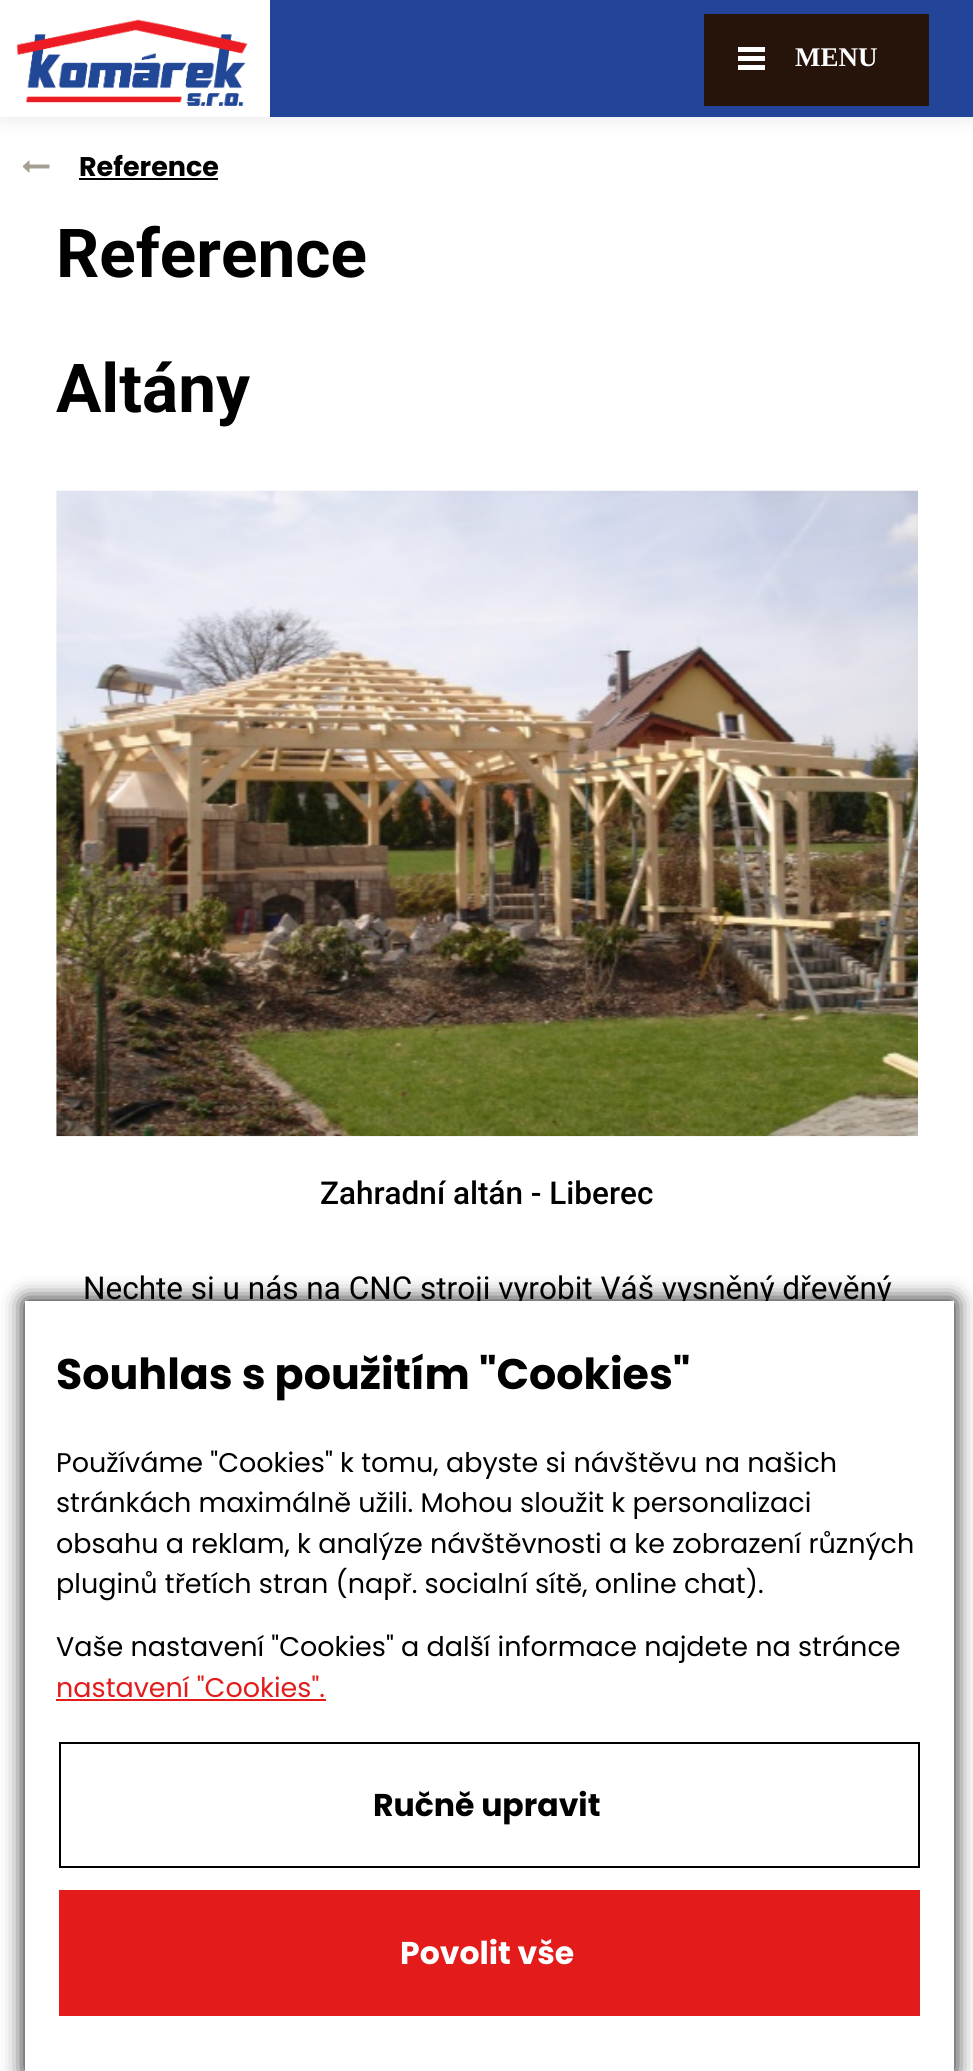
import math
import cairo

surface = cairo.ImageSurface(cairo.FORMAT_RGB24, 973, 2071)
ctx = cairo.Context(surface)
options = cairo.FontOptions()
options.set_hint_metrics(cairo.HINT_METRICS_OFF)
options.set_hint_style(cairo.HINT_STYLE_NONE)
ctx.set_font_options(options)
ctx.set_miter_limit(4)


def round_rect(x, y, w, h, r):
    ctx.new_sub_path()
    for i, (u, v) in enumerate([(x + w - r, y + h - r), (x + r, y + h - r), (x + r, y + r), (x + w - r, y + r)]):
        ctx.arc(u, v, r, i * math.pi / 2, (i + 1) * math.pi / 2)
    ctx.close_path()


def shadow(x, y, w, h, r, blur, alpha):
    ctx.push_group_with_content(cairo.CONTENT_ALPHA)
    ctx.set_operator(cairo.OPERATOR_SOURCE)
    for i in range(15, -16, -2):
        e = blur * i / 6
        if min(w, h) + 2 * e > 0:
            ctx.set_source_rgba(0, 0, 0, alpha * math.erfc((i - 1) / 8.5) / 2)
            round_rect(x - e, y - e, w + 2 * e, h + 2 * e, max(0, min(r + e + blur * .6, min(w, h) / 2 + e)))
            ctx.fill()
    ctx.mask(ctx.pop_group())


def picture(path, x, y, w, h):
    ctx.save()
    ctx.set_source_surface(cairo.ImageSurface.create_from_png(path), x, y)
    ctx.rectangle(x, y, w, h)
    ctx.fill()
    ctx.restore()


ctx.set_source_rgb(1, 1, 1)
ctx.paint()
ctx.set_source_rgb(0, 0, 0)
shadow(0, 0, 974, 117, 0, 11, 0.1)
ctx.set_source_rgb(0.133, 0.271, 0.6)
ctx.rectangle(270, 0, 703, 117)
ctx.fill()
ctx.set_source_rgb(1, 1, 1)
ctx.rectangle(0, 0, 270, 117)
ctx.fill()
picture("img1.png", 16, 19, 232, 87)
ctx.set_source_rgb(0.149, 0.082, 0.043)
ctx.rectangle(704, 14, 225, 92)
ctx.fill()
ctx.set_source_rgb(1, 1, 1)
ctx.rectangle(738, 47, 27, 5)
ctx.fill()
ctx.rectangle(738, 56, 27, 5)
ctx.fill()
ctx.rectangle(738, 65, 27, 5)
ctx.fill()
ctx.select_font_face("Liberation Serif", cairo.FONT_SLANT_NORMAL, cairo.FONT_WEIGHT_BOLD)
ctx.set_font_size(27)
ctx.move_to(795, 66)
ctx.show_text("MENU")
picture("img2.png", 23, 160, 27, 13)
ctx.select_font_face("Poppins", cairo.FONT_SLANT_NORMAL, cairo.FONT_WEIGHT_BOLD)
ctx.set_source_rgb(0, 0, 0)
ctx.move_to(79, 176)
ctx.show_text("Reference")
ctx.rectangle(79, 178, 139, 2)
ctx.fill()
ctx.select_font_face("Roboto", cairo.FONT_SLANT_NORMAL, cairo.FONT_WEIGHT_BOLD)
ctx.set_font_size(67.5)
ctx.move_to(56, 277)
ctx.show_text("Reference")
ctx.move_to(56, 412)
ctx.show_text("Altány")
picture("img3.png", 56, 490, 862, 647)
ctx.select_font_face("Roboto Medium")
ctx.set_font_size(31.5)
ctx.move_to(320, 1204)
ctx.show_text("Zahradní altán - Liberec")
ctx.select_font_face("Roboto")
ctx.move_to(83, 1299)
ctx.show_text("Nechte si u nás na CNC stroji vyrobit Váš vysněný dřevěný")
ctx.set_source_rgb(0, 0, 0)
shadow(25, 1301, 929, 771, 0, 11, 1)
ctx.set_source_rgb(1, 1, 1)
ctx.rectangle(25, 1301, 929, 770)
ctx.fill()
ctx.select_font_face("Poppins", cairo.FONT_SLANT_NORMAL, cairo.FONT_WEIGHT_BOLD)
ctx.set_font_size(42.75)
ctx.set_source_rgb(0, 0, 0)
ctx.move_to(56, 1389)
ctx.show_text("Souhlas s použitím \"Cookies\"")
ctx.select_font_face("Poppins")
ctx.set_font_size(27)
ctx.move_to(56, 1472)
ctx.show_text("Používáme \"Cookies\" k tomu, abyste si návštěvu na našich")
ctx.move_to(56, 1512)
ctx.show_text("stránkách maximálně užili. Mohou sloužit k personalizaci")
ctx.move_to(56, 1553)
ctx.show_text("obsahu a reklam, k analýze návštěvnosti a ke zobrazení různých")
ctx.move_to(56, 1593)
ctx.show_text("pluginů třetích stran (např. socialní sítě, online chat).")
ctx.move_to(56, 1656)
ctx.show_text("Vaše nastavení \"Cookies\" a další informace najdete na stránce")
ctx.set_source_rgb(0.89, 0.106, 0.106)
ctx.move_to(56, 1697)
ctx.show_text("nastavení \"Cookies\".")
ctx.rectangle(56, 1699, 270, 2)
ctx.fill()
ctx.rectangle(60, 1743, 859, 124)
ctx.set_source_rgb(0, 0, 0)
ctx.stroke()
ctx.select_font_face("Poppins", cairo.FONT_SLANT_NORMAL, cairo.FONT_WEIGHT_BOLD)
ctx.set_font_size(31.5)
ctx.move_to(373, 1816)
ctx.show_text("Ručně upravit")
ctx.set_source_rgb(0.89, 0.106, 0.106)
ctx.rectangle(59, 1890, 861, 126)
ctx.fill()
ctx.set_source_rgb(1, 1, 1)
ctx.move_to(400, 1964)
ctx.show_text("Povolit vše")
surface.write_to_png("page.png")
